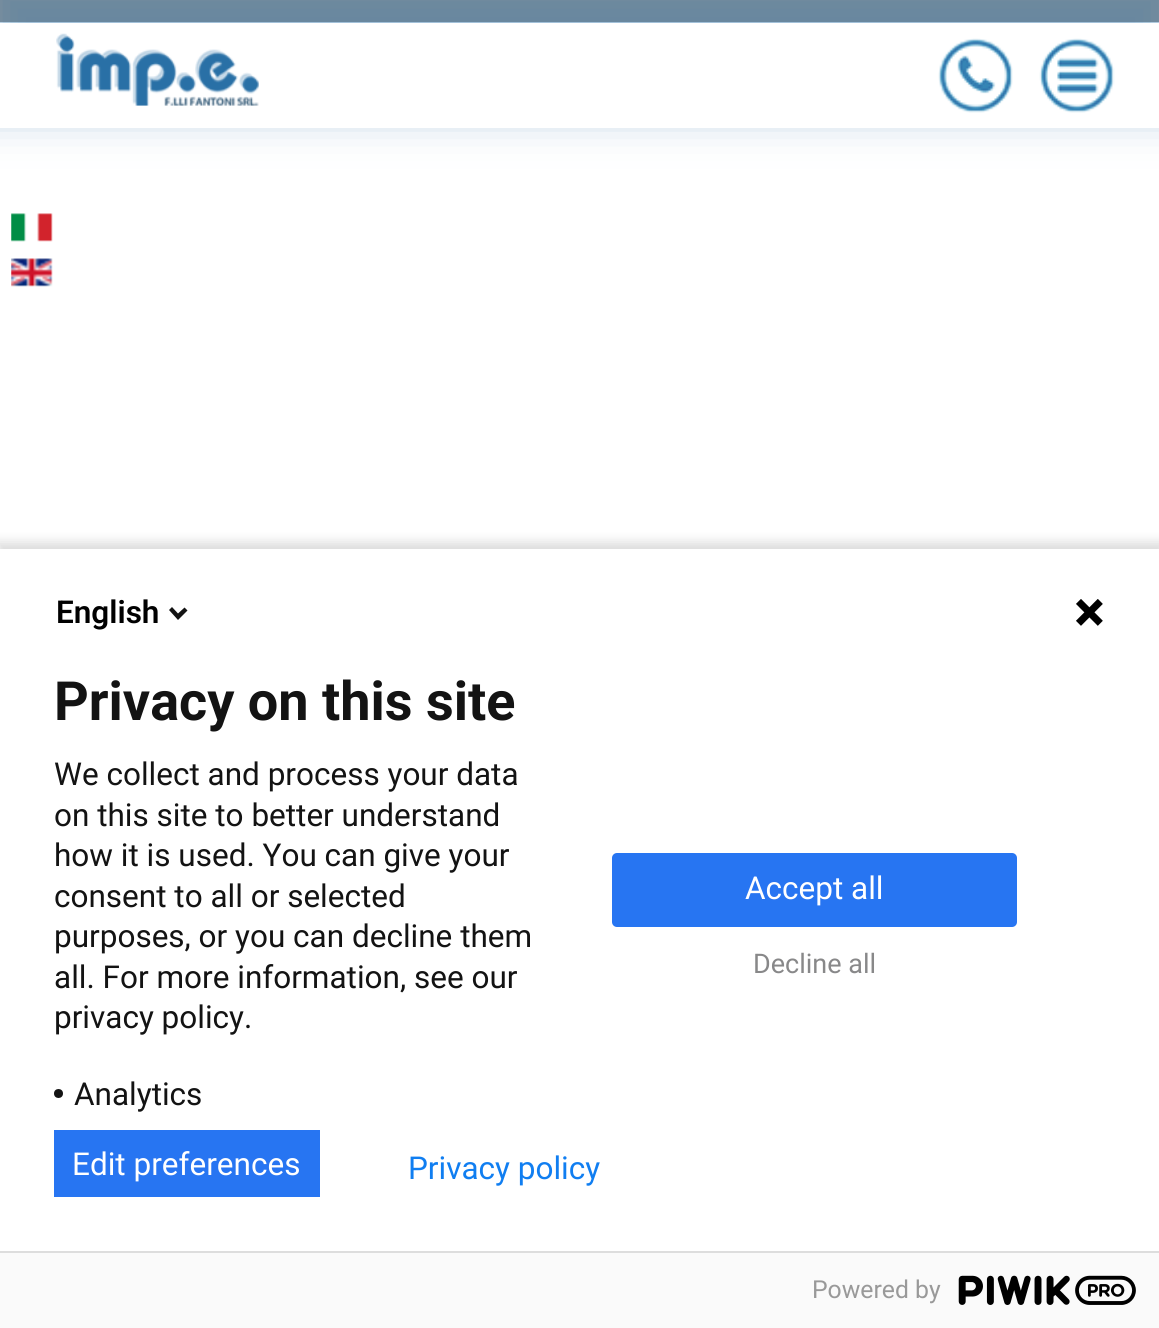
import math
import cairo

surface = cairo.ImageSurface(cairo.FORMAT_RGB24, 1159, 1328)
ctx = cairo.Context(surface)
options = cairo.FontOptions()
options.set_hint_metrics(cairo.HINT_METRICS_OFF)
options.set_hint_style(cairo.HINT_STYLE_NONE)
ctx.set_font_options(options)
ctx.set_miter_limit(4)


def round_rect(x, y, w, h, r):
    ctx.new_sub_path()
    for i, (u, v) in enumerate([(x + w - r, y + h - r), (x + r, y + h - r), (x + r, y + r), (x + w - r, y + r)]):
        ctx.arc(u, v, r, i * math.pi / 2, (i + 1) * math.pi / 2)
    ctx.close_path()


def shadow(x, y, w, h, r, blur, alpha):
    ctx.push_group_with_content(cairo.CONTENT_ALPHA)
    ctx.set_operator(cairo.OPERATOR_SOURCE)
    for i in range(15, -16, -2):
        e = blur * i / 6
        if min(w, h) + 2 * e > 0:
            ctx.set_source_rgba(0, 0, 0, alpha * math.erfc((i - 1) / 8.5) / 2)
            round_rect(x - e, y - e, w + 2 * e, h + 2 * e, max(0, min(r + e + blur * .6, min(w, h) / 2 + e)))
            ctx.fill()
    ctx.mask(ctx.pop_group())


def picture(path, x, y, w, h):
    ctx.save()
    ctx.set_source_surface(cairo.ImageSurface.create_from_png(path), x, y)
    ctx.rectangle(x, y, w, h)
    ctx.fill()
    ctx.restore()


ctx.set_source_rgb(1, 1, 1)
ctx.paint()
ctx.set_source_rgb(0.6, 0.6, 0.6)
ctx.rectangle(0, 0, 1159, 22)
ctx.fill()
ctx.save()
ctx.set_fill_rule(cairo.FILL_RULE_EVEN_ODD)
ctx.new_path()
ctx.move_to(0, 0)
ctx.line_to(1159, 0)
ctx.line_to(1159, 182)
ctx.line_to(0, 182)
ctx.close_path()
ctx.move_to(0, 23)
ctx.line_to(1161, 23)
ctx.line_to(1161, 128)
ctx.line_to(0, 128)
ctx.close_path()
ctx.clip()
ctx.set_source_rgb(0.161, 0.439, 0.651)
shadow(-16, -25, 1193, 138, 0, 22.5, 0.44)
ctx.restore()
picture("img1.png", 56, 33, 203, 73)
picture("img2.png", 938, 38, 75, 75)
picture("img3.png", 1039, 38, 76, 75)
picture("img4.png", 11, 213, 42, 29)
picture("img5.png", 11, 258, 42, 29)
ctx.set_source_rgb(0, 0, 0)
shadow(-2, 542, 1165, 786, 0, 5.5, 0.14)
ctx.set_source_rgb(1, 1, 1)
ctx.rectangle(0, 549, 1159, 702)
ctx.fill()
ctx.select_font_face("Roboto SemiBold")
ctx.set_font_size(31.5)
ctx.set_source_rgb(0, 0, 0)
ctx.move_to(56, 623)
ctx.show_text("English")
ctx.set_source_rgb(0.075, 0.075, 0.075)
ctx.new_path()
ctx.move_to(178, 613.5)
ctx.line_to(184.5, 607.5)
ctx.line_to(187.5, 610.5)
ctx.line_to(178, 620)
ctx.line_to(169, 610)
ctx.line_to(172, 607)
ctx.close_path()
ctx.fill()
picture("img6.png", 1076, 599, 27, 27)
ctx.select_font_face("Roboto", cairo.FONT_SLANT_NORMAL, cairo.FONT_WEIGHT_BOLD)
ctx.set_font_size(54)
ctx.move_to(54, 720)
ctx.show_text("Privacy on this site")
ctx.select_font_face("Roboto")
ctx.set_font_size(31.5)
ctx.move_to(54, 785)
ctx.show_text("We collect and process your data")
ctx.move_to(54, 826)
ctx.show_text("on this site to better understand")
ctx.move_to(54, 866)
ctx.show_text("how it is used. You can give your")
ctx.move_to(54, 907)
ctx.show_text("consent to all or selected")
ctx.move_to(54, 947)
ctx.show_text("purposes, or you can decline them")
ctx.move_to(54, 988)
ctx.show_text("all. For more information, see our")
ctx.move_to(54, 1028)
ctx.show_text("privacy policy.")
ctx.new_path()
ctx.arc(58.5, 1093.5, 4.5, 0, 2 * math.pi)
ctx.fill()
ctx.move_to(74, 1105)
ctx.show_text("Analytics")
ctx.set_source_rgb(0.153, 0.459, 0.949)
round_rect(612, 853, 405, 74, 5)
ctx.fill()
ctx.set_source_rgb(1, 1, 1)
ctx.move_to(745, 899)
ctx.show_text("Accept all")
ctx.set_font_size(27)
ctx.set_source_rgb(0.533, 0.533, 0.537)
ctx.move_to(753, 973)
ctx.show_text("Decline all")
ctx.set_source_rgb(0.153, 0.459, 0.949)
ctx.rectangle(54, 1130, 266, 67)
ctx.fill()
ctx.set_font_size(31.5)
ctx.set_source_rgb(1, 1, 1)
ctx.move_to(72, 1175)
ctx.show_text("Edit preferences")
ctx.set_source_rgb(0.063, 0.494, 0.945)
ctx.move_to(408, 1179)
ctx.show_text("Privacy policy")
ctx.set_source_rgb(0.98, 0.98, 0.98)
ctx.rectangle(0, 1253, 1159, 75)
ctx.fill()
ctx.set_source_rgb(0.867, 0.867, 0.867)
ctx.rectangle(0, 1251, 1159, 2)
ctx.fill()
ctx.set_font_size(24.75)
ctx.set_source_rgb(0.6, 0.6, 0.6)
ctx.move_to(812, 1298)
ctx.show_text("Powered by")
picture("img7.png", 958, 1275, 178, 30)
surface.write_to_png("page.png")
